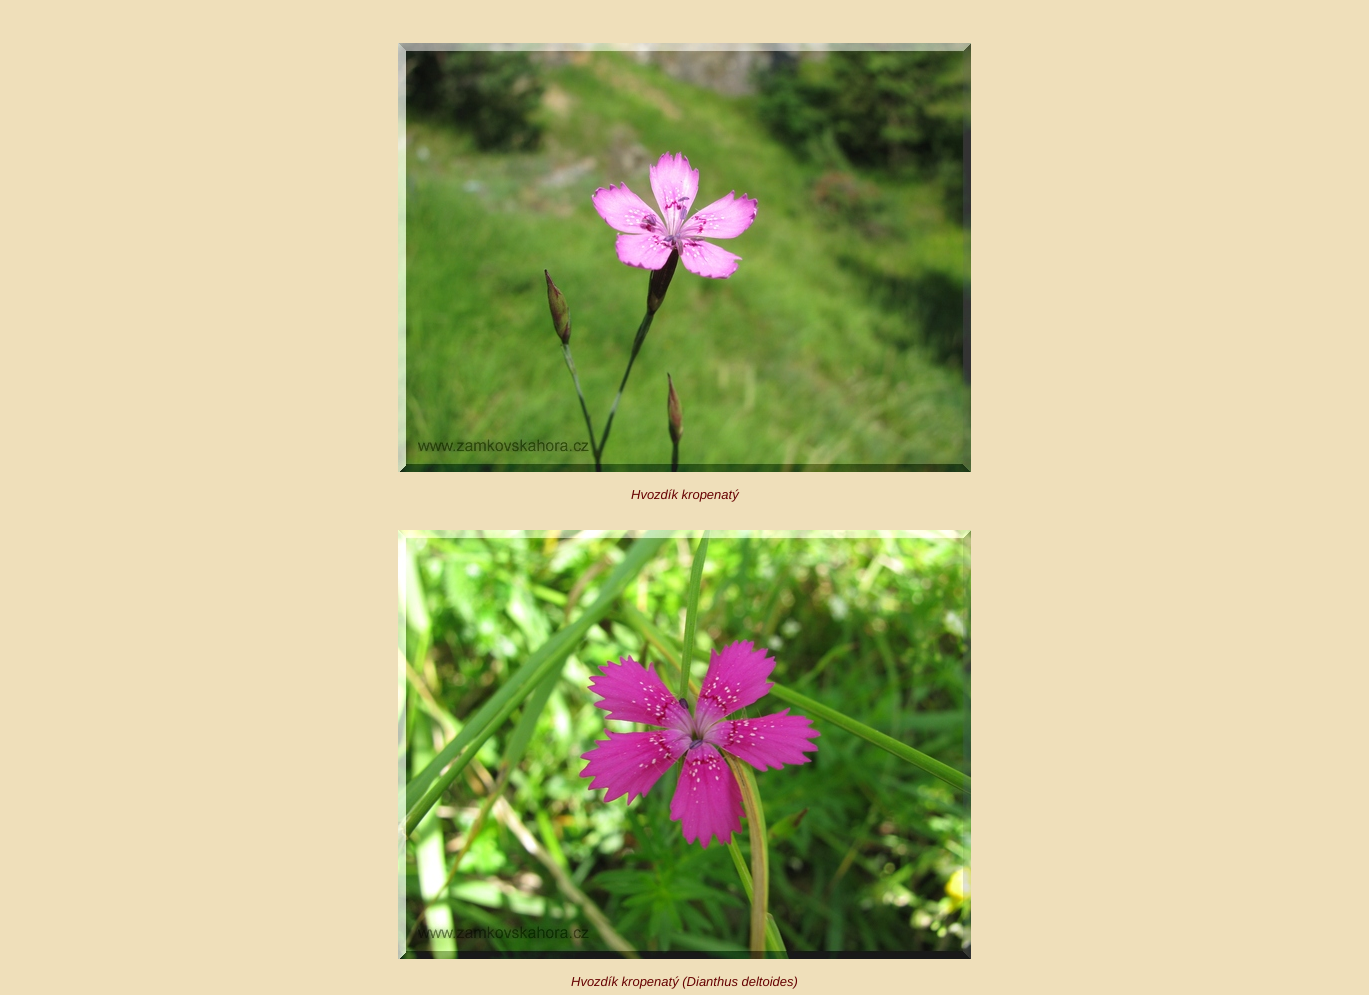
import math
import cairo

surface = cairo.ImageSurface(cairo.FORMAT_RGB24, 1369, 995)
ctx = cairo.Context(surface)
options = cairo.FontOptions()
options.set_hint_metrics(cairo.HINT_METRICS_OFF)
options.set_hint_style(cairo.HINT_STYLE_NONE)
ctx.set_font_options(options)
ctx.set_miter_limit(4)


def picture(path, x, y, w, h):
    ctx.save()
    ctx.set_source_surface(cairo.ImageSurface.create_from_png(path), x, y)
    ctx.rectangle(x, y, w, h)
    ctx.fill()
    ctx.restore()


ctx.set_source_rgb(0.937, 0.875, 0.729)
ctx.paint()
picture("img1.png", 398, 43, 573, 429)
ctx.select_font_face("Liberation Sans", cairo.FONT_SLANT_ITALIC)
ctx.set_font_size(13)
ctx.set_source_rgb(0.4, 0, 0)
ctx.move_to(631, 499)
ctx.show_text("Hvozdík kropenatý")
picture("img2.png", 398, 530, 573, 429)
ctx.move_to(571, 986)
ctx.show_text("Hvozdík kropenatý (Dianthus deltoides)")
surface.write_to_png("page.png")
